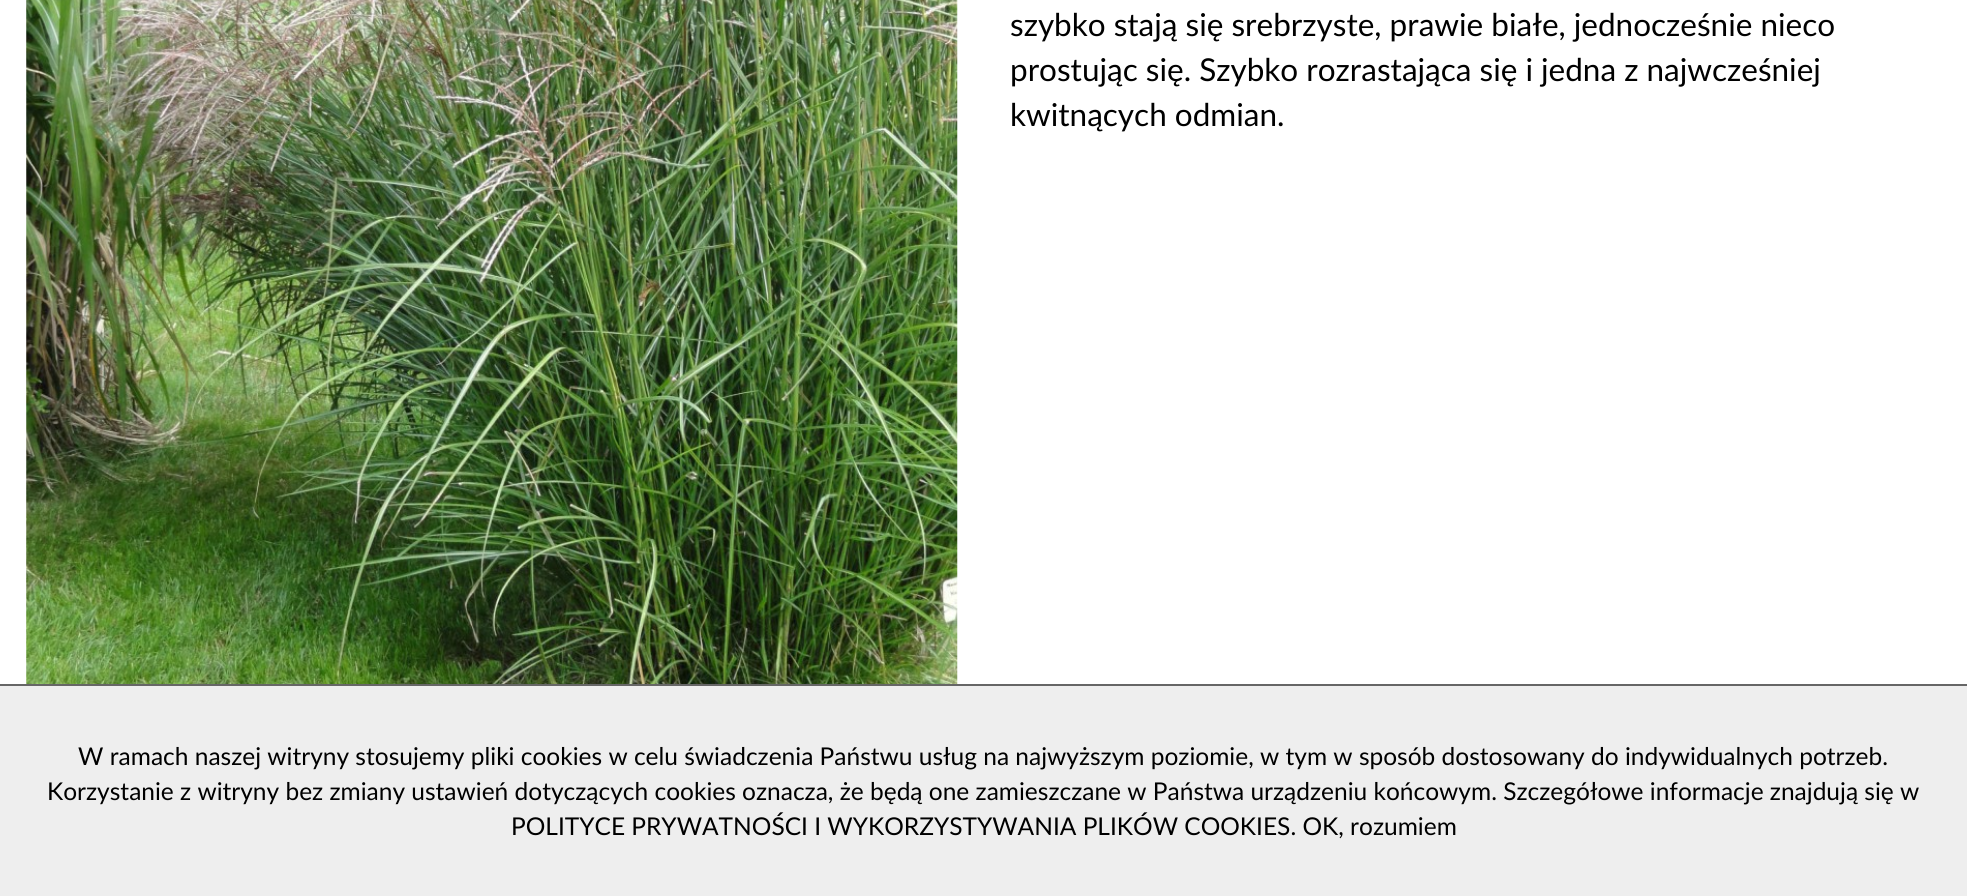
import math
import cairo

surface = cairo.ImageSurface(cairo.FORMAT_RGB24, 1967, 896)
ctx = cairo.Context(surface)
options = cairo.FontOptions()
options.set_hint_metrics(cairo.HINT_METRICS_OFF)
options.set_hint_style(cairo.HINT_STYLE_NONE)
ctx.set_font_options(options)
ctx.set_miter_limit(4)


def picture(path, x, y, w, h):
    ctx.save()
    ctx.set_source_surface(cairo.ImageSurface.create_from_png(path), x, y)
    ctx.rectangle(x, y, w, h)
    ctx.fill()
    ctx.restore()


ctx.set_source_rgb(1, 1, 1)
ctx.paint()
picture("img1.png", 26, 0, 932, 684)
ctx.select_font_face("Lato")
ctx.set_font_size(31.5)
ctx.set_source_rgb(0, 0, 0)
ctx.move_to(1010, 36)
ctx.show_text("szybko stają się srebrzyste, prawie białe, jednocześnie nieco")
ctx.move_to(1010, 81)
ctx.show_text("prostując się. Szybko rozrastająca się i jedna z najwcześniej")
ctx.move_to(1010, 126)
ctx.show_text("kwitnących odmian.")
ctx.set_source_rgb(0.933, 0.933, 0.933)
ctx.rectangle(0, 686, 1967, 210)
ctx.fill()
ctx.set_source_rgb(0.4, 0.4, 0.4)
ctx.rectangle(0, 684, 1967, 2)
ctx.fill()
ctx.set_font_size(24.5)
ctx.set_source_rgb(0, 0, 0)
ctx.move_to(78, 765)
ctx.show_text("W ramach naszej witryny stosujemy pliki cookies w celu świadczenia Państwu usług na najwyższym poziomie, w tym w sposób dostosowany do indywidualnych potrzeb.")
ctx.move_to(47, 800)
ctx.show_text("Korzystanie z witryny bez zmiany ustawień dotyczących cookies oznacza, że będą one zamieszczane w Państwa urządzeniu końcowym. Szczegółowe informacje znajdują się w")
ctx.move_to(511, 835)
ctx.show_text("POLITYCE PRYWATNOŚCI I WYKORZYSTYWANIA PLIKÓW COOKIES. OK, rozumiem")
surface.write_to_png("page.png")
